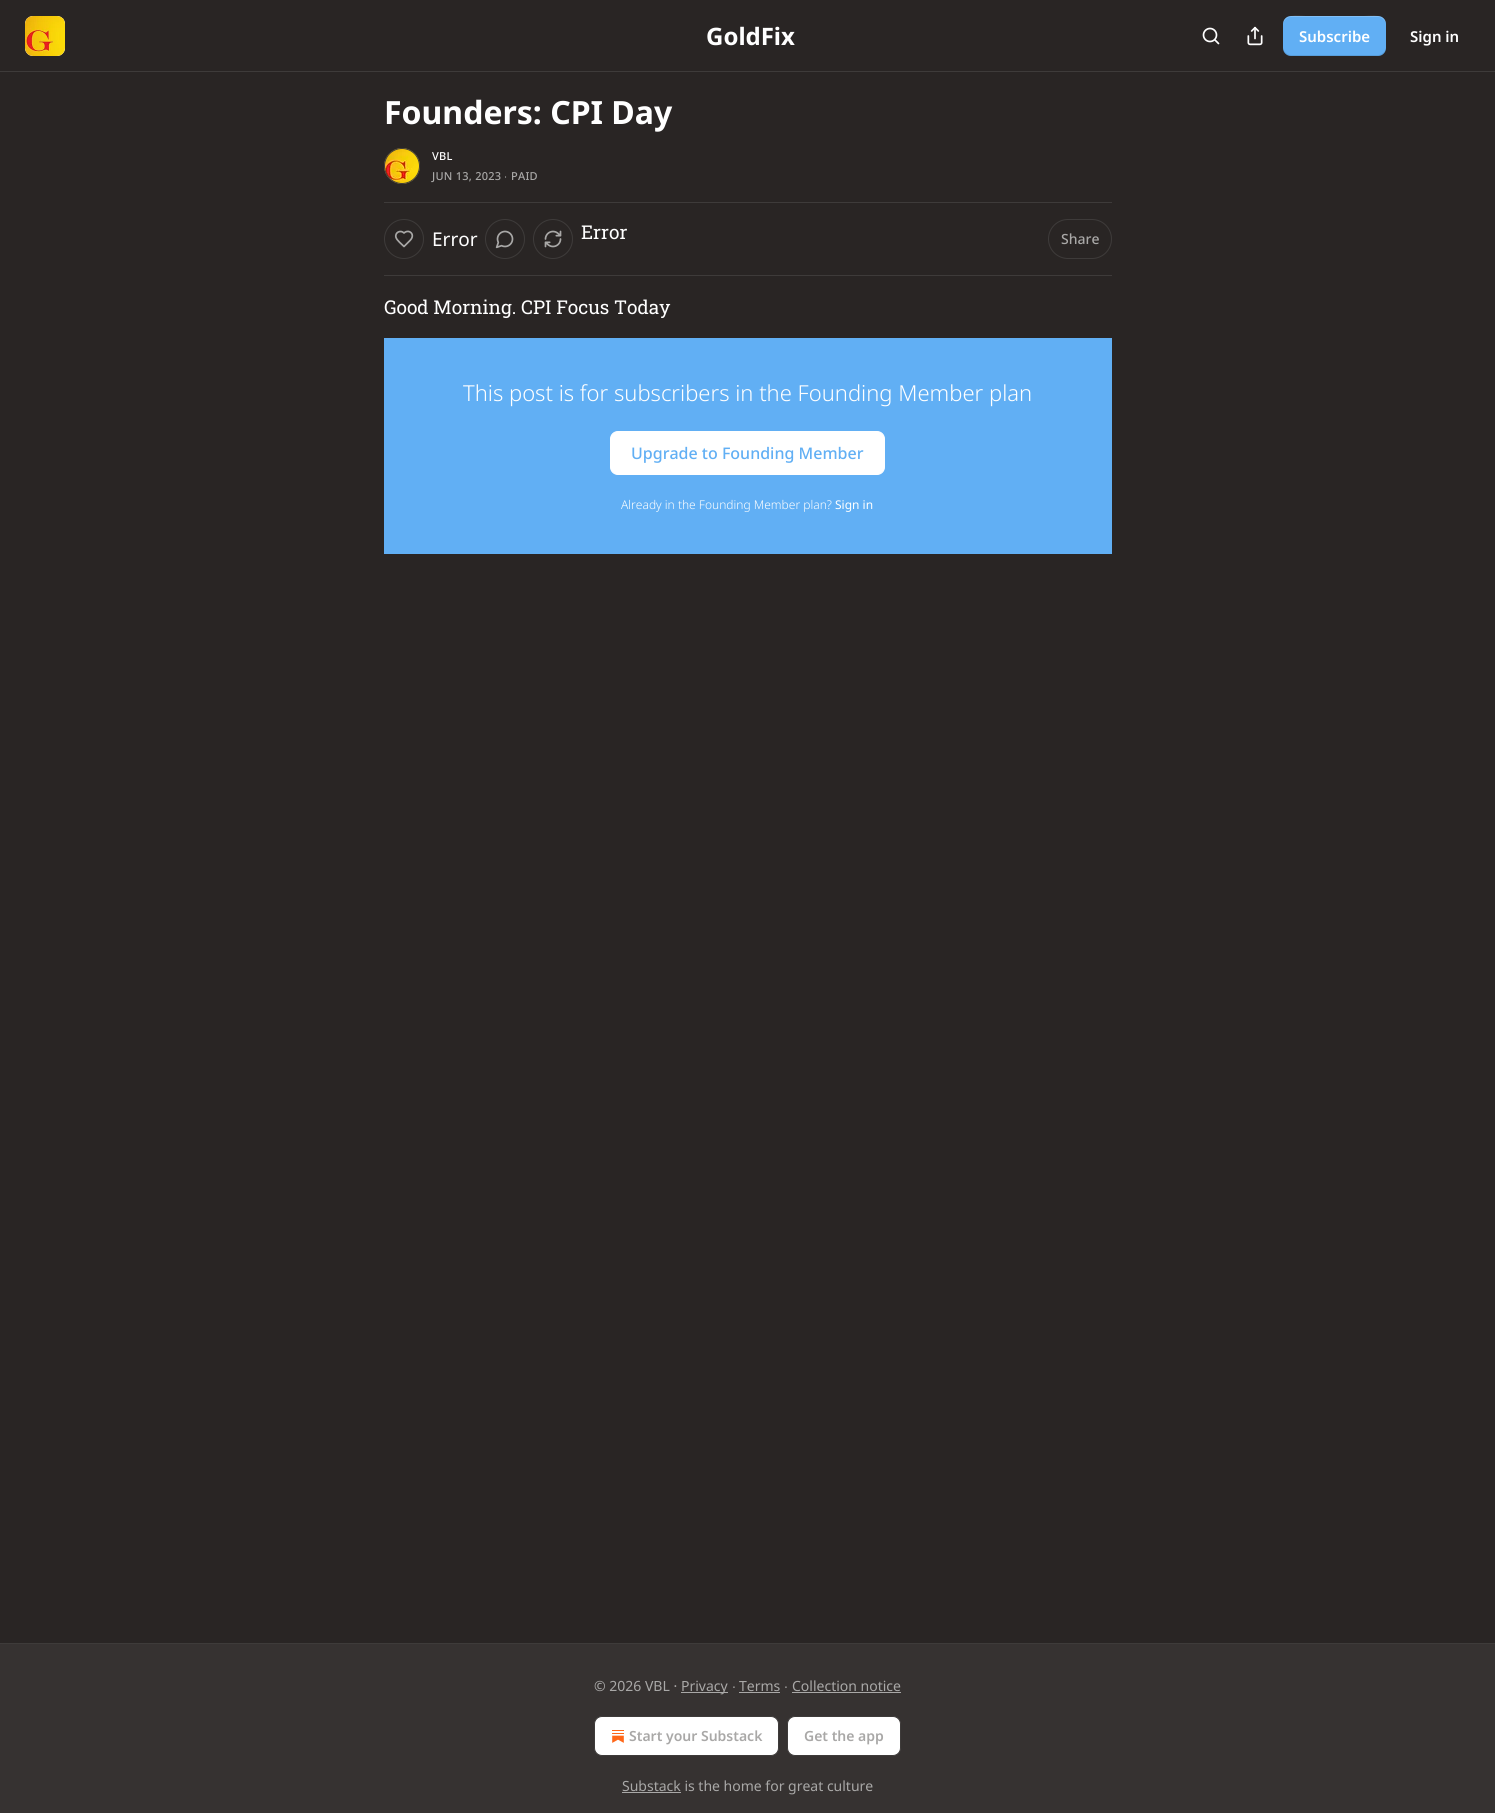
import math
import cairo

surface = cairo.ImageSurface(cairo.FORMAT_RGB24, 1495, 1813)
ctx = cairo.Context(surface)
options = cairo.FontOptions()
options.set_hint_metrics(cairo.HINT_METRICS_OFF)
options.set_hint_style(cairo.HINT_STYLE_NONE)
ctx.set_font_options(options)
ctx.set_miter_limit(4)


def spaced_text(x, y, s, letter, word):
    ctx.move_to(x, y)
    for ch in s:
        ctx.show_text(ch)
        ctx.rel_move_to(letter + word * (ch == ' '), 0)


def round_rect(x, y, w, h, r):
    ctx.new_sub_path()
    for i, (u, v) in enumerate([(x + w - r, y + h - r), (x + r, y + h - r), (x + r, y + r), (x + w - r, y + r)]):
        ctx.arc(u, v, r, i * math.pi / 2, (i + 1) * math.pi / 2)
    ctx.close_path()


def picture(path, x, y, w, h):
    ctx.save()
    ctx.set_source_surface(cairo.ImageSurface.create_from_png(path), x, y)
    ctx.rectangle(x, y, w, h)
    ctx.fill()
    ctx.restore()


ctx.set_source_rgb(0.161, 0.145, 0.141)
ctx.paint()
ctx.set_source_rgb(0.243, 0.231, 0.227)
ctx.rectangle(0, 71, 1495, 1)
ctx.fill()
ctx.set_source_rgb(1, 1, 1)
round_rect(25, 16, 40, 40, 8)
ctx.fill()
picture("img1.png", 25, 16, 40, 40)
ctx.select_font_face("Noto Sans", cairo.FONT_SLANT_NORMAL, cairo.FONT_WEIGHT_BOLD)
ctx.set_font_size(24)
ctx.move_to(706, 45)
ctx.show_text("GoldFix")
ctx.new_path()
ctx.arc(1210, 35, 6.5, 0, 2 * math.pi)
ctx.set_line_width(1.7)
ctx.stroke()
ctx.new_path()
ctx.move_to(1218.5, 43.5)
ctx.line_to(1215, 40)
ctx.set_line_cap(cairo.LINE_CAP_ROUND)
ctx.set_line_join(cairo.LINE_JOIN_ROUND)
ctx.stroke()
picture("img2.png", 1247, 26, 16, 20)
ctx.set_source_rgb(0.38, 0.686, 0.957)
round_rect(1283, 16, 103, 40, 8)
ctx.fill()
ctx.set_source_rgba(0, 0, 0, 0.1)
ctx.new_path()
ctx.move_to(1283, 47)
ctx.curve_to(1283, 59, 1297, 56, 1306, 56)
ctx.line_to(1364, 56)
ctx.curve_to(1372, 56, 1386, 59, 1386, 47)
ctx.curve_to(1386, 51, 1382, 55, 1378, 55)
ctx.line_to(1291, 55)
ctx.curve_to(1287, 55, 1283, 51, 1283, 47)
ctx.close_path()
ctx.fill()
ctx.set_source_rgba(1, 1, 1, 0.2)
ctx.new_path()
ctx.move_to(1291, 17)
ctx.line_to(1378, 17)
ctx.curve_to(1382, 17, 1386, 21, 1386, 25)
ctx.curve_to(1386, 13, 1372, 16, 1364, 16)
ctx.line_to(1306, 16)
ctx.curve_to(1297, 16, 1283, 13, 1283, 25)
ctx.curve_to(1283, 21, 1287, 17, 1291, 17)
ctx.close_path()
ctx.fill()
ctx.select_font_face("Noto Sans SemiBold")
ctx.set_font_size(15)
ctx.set_source_rgb(1, 1, 1)
ctx.move_to(1299, 42)
ctx.show_text("Subscribe")
ctx.move_to(1410, 42)
ctx.show_text("Sign in")
ctx.select_font_face("Noto Sans", cairo.FONT_SLANT_NORMAL, cairo.FONT_WEIGHT_BOLD)
ctx.set_font_size(32)
ctx.move_to(384, 124)
ctx.show_text("Founders: CPI Day")
ctx.new_path()
ctx.arc(402, 166, 17.5, 0, 2 * math.pi)
ctx.set_source_rgb(0.243, 0.231, 0.227)
ctx.set_line_width(1)
ctx.set_line_cap(cairo.LINE_CAP_BUTT)
ctx.set_line_join(cairo.LINE_JOIN_MITER)
ctx.stroke()
picture("img3.png", 384, 148, 36, 36)
ctx.arc(402, 166, 17.5, 0, 2 * math.pi)
ctx.stroke()
ctx.select_font_face("Noto Sans Medium")
ctx.set_font_size(11)
ctx.set_source_rgb(1, 1, 1)
spaced_text(432, 160, "VBL", 0.25, 0)
ctx.set_source_rgb(0.663, 0.659, 0.655)
spaced_text(432, 180, "JUN 13, 2023", 0.25, 0)
ctx.select_font_face("Liberation Sans")
spaced_text(504, 180, "∙", 0.25, 0)
ctx.select_font_face("Noto Sans Medium")
spaced_text(511, 180, "PAID", 0.25, 0)
ctx.set_source_rgb(0.243, 0.231, 0.227)
ctx.rectangle(384, 202, 728, 1)
ctx.fill()
ctx.rectangle(384, 275, 728, 1)
ctx.fill()
ctx.arc(404, 239, 19.5, 0, 2 * math.pi)
ctx.stroke()
ctx.new_path()
ctx.move_to(410, 240.5)
ctx.curve_to(416, 234.5, 409, 228.5, 404, 233)
ctx.curve_to(400.5, 229.5, 394.5, 232.5, 396, 237.5)
ctx.curve_to(397, 240.5, 402, 244.5, 404, 246.5)
ctx.close_path()
ctx.set_source_rgb(0.663, 0.659, 0.655)
ctx.set_line_width(1.7)
ctx.set_line_cap(cairo.LINE_CAP_ROUND)
ctx.set_line_join(cairo.LINE_JOIN_ROUND)
ctx.stroke()
ctx.select_font_face("Noto Sans")
ctx.set_font_size(19)
ctx.set_source_rgb(1, 1, 1)
ctx.move_to(432, 246)
ctx.show_text("Error")
ctx.new_path()
ctx.arc(505, 239, 19.5, 0, 2 * math.pi)
ctx.set_source_rgb(0.243, 0.231, 0.227)
ctx.set_line_width(1)
ctx.set_line_cap(cairo.LINE_CAP_BUTT)
ctx.set_line_join(cairo.LINE_JOIN_MITER)
ctx.stroke()
picture("img4.png", 495, 230, 19, 19)
ctx.arc(553, 239, 19.5, 0, 2 * math.pi)
ctx.stroke()
picture("img5.png", 544, 230, 18, 18)
ctx.select_font_face("Roboto Slab")
ctx.set_source_rgb(1, 1, 1)
ctx.move_to(581, 239)
ctx.show_text("Error")
round_rect(1048.5, 219.5, 63, 39, 19.5)
ctx.set_source_rgb(0.243, 0.231, 0.227)
ctx.stroke()
ctx.select_font_face("Noto Sans Medium")
ctx.set_font_size(14)
ctx.set_source_rgb(0.663, 0.659, 0.655)
ctx.move_to(1061, 244)
ctx.show_text("Share")
ctx.select_font_face("Roboto Slab")
ctx.set_font_size(19)
ctx.set_source_rgb(1, 1, 1)
ctx.move_to(384, 314)
ctx.show_text("Good Morning. CPI Focus Today")
ctx.set_source_rgb(0.38, 0.686, 0.957)
ctx.rectangle(384, 338, 728, 216)
ctx.fill()
ctx.select_font_face("Noto Sans Light")
ctx.set_font_size(22)
ctx.set_source_rgb(1, 1, 1)
ctx.move_to(463, 401)
ctx.show_text("This post is for subscribers in the Founding Member plan")
round_rect(610.5, 431.5, 274, 43, 7.5)
ctx.fill_preserve()
ctx.stroke()
ctx.select_font_face("Noto Sans Medium")
ctx.set_font_size(16)
ctx.set_source_rgb(0.38, 0.686, 0.957)
ctx.move_to(631, 459)
ctx.show_text("Upgrade to Founding Member")
ctx.select_font_face("Noto Sans Light")
ctx.set_font_size(12)
ctx.set_source_rgb(1, 1, 1)
ctx.move_to(621, 509)
ctx.show_text("Already in the Founding Member plan?")
ctx.select_font_face("Noto Sans")
ctx.move_to(835, 509)
ctx.show_text("Sign in")
ctx.set_source_rgb(0.212, 0.196, 0.192)
ctx.rectangle(0, 1644, 1495, 169)
ctx.fill()
ctx.set_source_rgb(0.243, 0.231, 0.227)
ctx.rectangle(0, 1643, 1495, 1)
ctx.fill()
ctx.set_font_size(14)
ctx.set_source_rgb(0.663, 0.659, 0.655)
ctx.move_to(594, 1691)
ctx.show_text("© 2026 VBL ·")
ctx.rectangle(681, 1692, 47, 1)
ctx.fill()
ctx.move_to(681, 1691)
ctx.show_text("Privacy")
ctx.select_font_face("Liberation Sans")
ctx.move_to(732, 1691)
ctx.show_text("∙")
ctx.select_font_face("Noto Sans")
ctx.move_to(739, 1691)
ctx.show_text("Terms")
ctx.rectangle(739, 1692, 41, 1)
ctx.fill()
ctx.select_font_face("Liberation Sans")
ctx.move_to(784, 1691)
ctx.show_text("∙")
ctx.select_font_face("Noto Sans")
ctx.move_to(792, 1691)
ctx.show_text("Collection notice")
ctx.rectangle(792, 1692, 109, 1)
ctx.fill()
ctx.set_source_rgb(1, 1, 1)
round_rect(594.5, 1716.5, 184, 39, 7.5)
ctx.fill_preserve()
ctx.set_source_rgb(0.243, 0.231, 0.227)
ctx.stroke()
picture("img6.png", 612, 1730, 12, 13)
ctx.select_font_face("Noto Sans SemiBold")
ctx.set_source_rgb(0.663, 0.659, 0.655)
ctx.move_to(629, 1741)
ctx.show_text("Start your Substack")
ctx.set_source_rgb(1, 1, 1)
round_rect(787.5, 1716.5, 113, 39, 7.5)
ctx.fill_preserve()
ctx.set_source_rgb(0.243, 0.231, 0.227)
ctx.stroke()
ctx.set_source_rgb(0.663, 0.659, 0.655)
ctx.move_to(804, 1741)
ctx.show_text("Get the app")
ctx.rectangle(622, 1792, 59, 1)
ctx.fill()
ctx.select_font_face("Noto Sans")
ctx.move_to(622, 1791)
ctx.show_text("Substack is the home for great culture")
surface.write_to_png("page.png")
